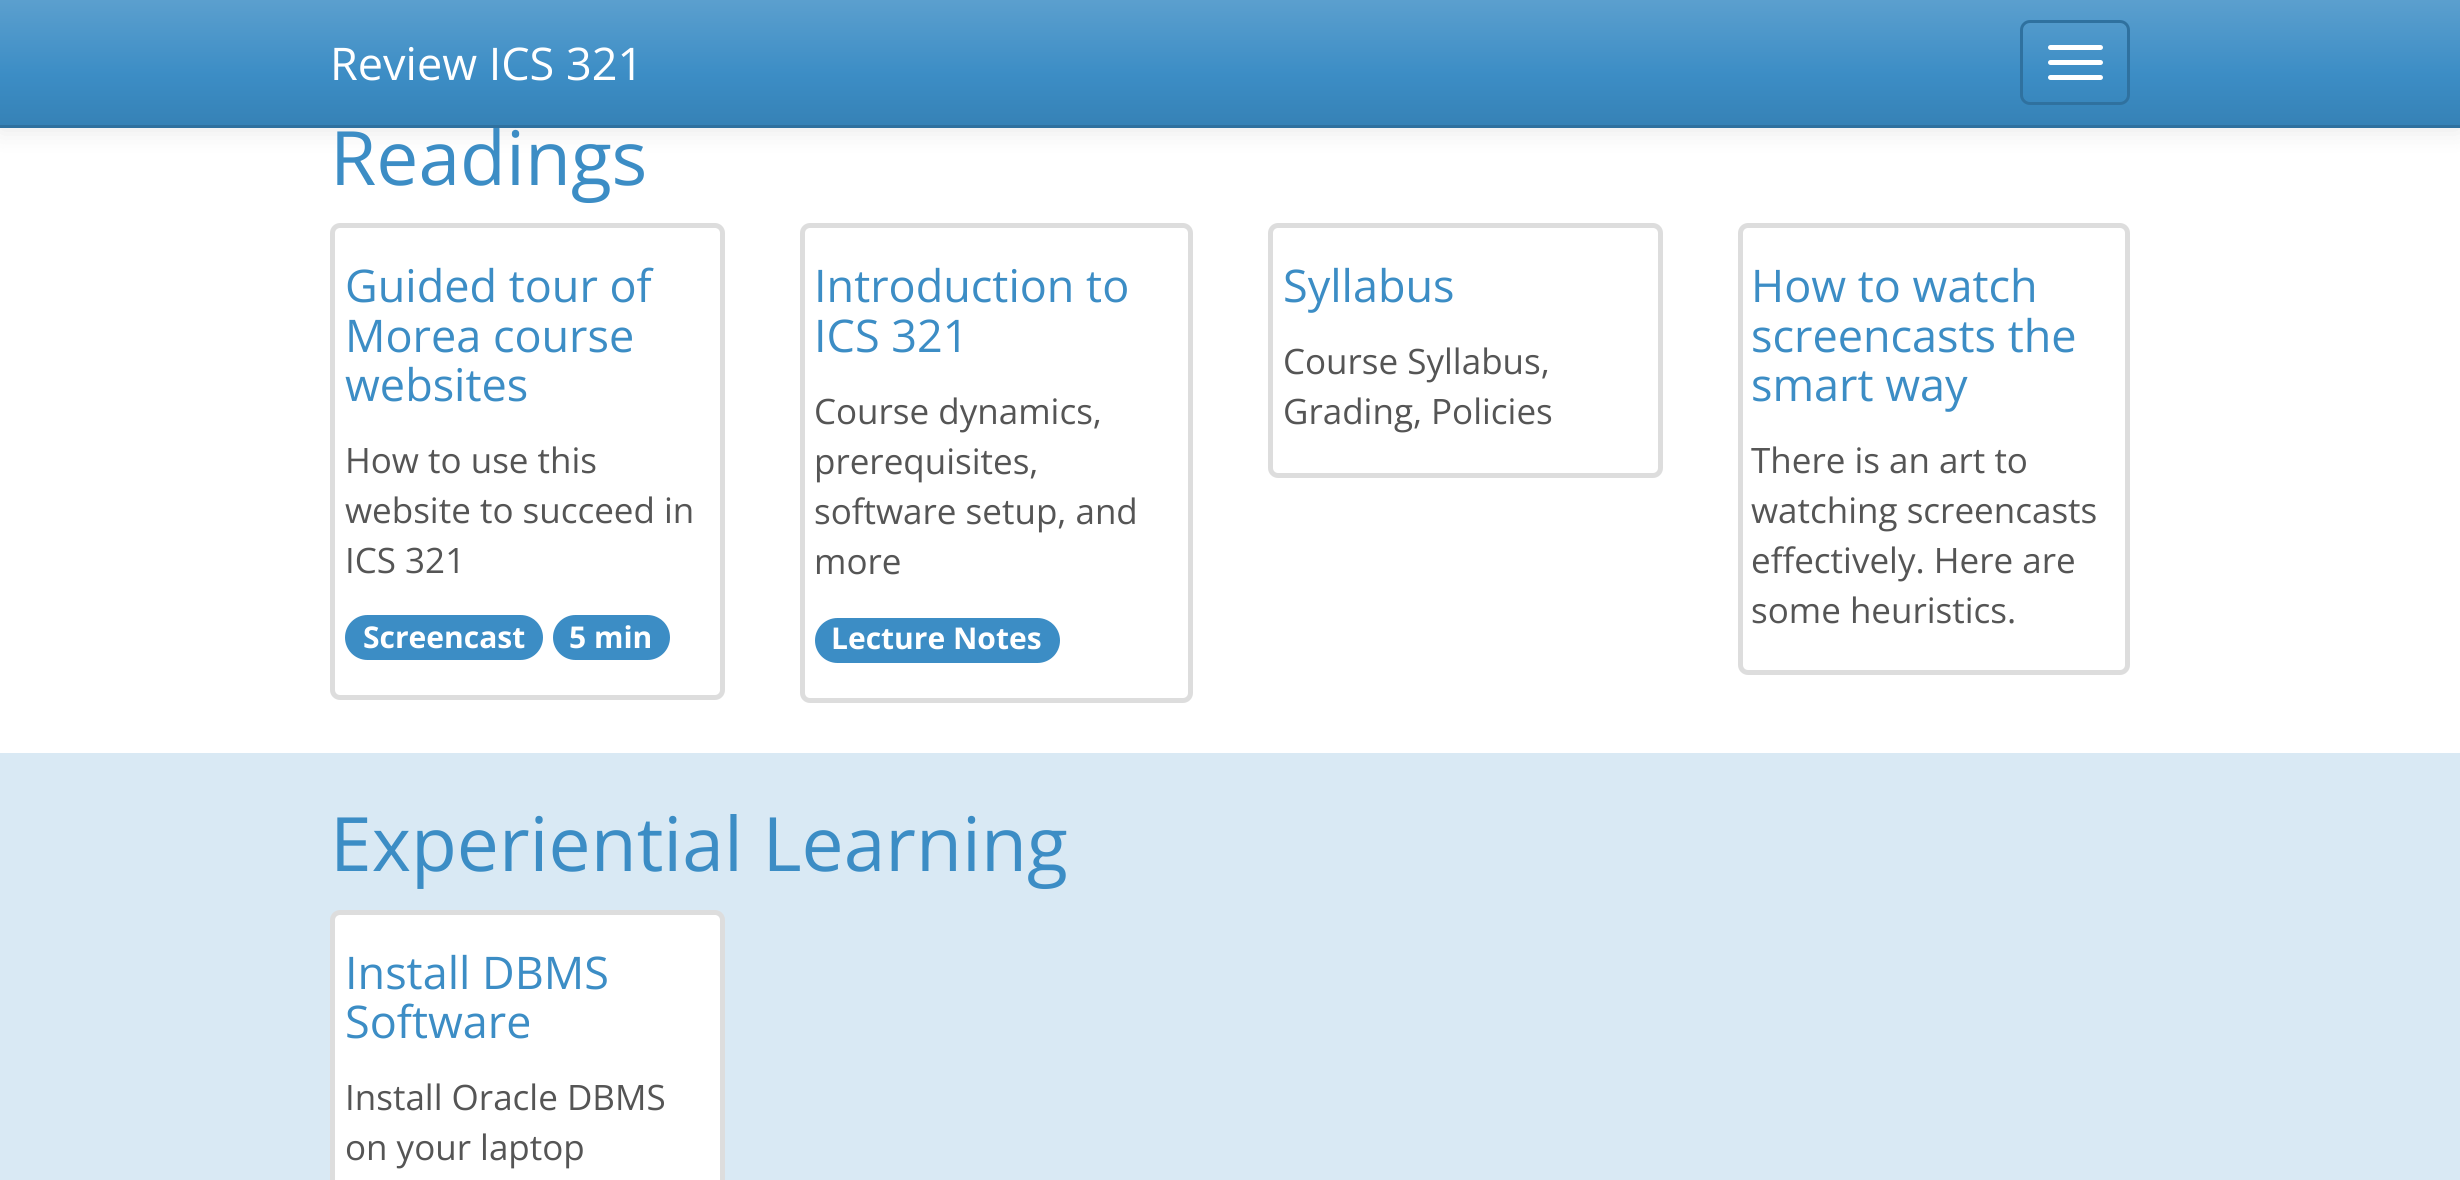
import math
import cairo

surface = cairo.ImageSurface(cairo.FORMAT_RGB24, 2460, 1180)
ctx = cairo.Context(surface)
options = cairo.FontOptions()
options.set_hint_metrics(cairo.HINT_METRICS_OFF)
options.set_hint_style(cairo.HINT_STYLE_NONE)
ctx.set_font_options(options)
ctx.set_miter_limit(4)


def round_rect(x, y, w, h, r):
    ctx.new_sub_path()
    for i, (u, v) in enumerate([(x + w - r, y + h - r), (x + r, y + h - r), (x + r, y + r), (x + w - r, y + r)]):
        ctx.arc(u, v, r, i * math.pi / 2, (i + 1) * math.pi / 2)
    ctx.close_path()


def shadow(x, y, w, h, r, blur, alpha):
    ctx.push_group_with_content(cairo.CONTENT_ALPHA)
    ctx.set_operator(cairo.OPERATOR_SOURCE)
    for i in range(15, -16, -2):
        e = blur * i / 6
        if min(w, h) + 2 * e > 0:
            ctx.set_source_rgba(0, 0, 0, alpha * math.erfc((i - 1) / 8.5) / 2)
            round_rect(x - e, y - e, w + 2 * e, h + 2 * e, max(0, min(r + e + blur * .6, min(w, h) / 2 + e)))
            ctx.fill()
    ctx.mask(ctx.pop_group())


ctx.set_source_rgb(1, 1, 1)
ctx.paint()
ctx.set_source_rgb(0, 0, 0)
shadow(0, 3, 2460, 127, 0, 12.5, 0.1)
gradient = cairo.LinearGradient(1230, 0, 1230, 125)
gradient.add_color_stop_rgba(0, 0.357, 0.624, 0.808, 1)
gradient.add_color_stop_rgba(0.6, 0.235, 0.553, 0.773, 1)
gradient.add_color_stop_rgba(1, 0.212, 0.51, 0.714, 1)
ctx.set_source(gradient)
ctx.rectangle(0, 0, 2460, 125)
ctx.fill()
ctx.set_source_rgb(0.184, 0.443, 0.624)
ctx.rectangle(0, 125, 2460, 3)
ctx.fill()
ctx.select_font_face("Open Sans")
ctx.set_font_size(45)
ctx.set_source_rgb(1, 1, 1)
ctx.move_to(330, 80)
ctx.show_text("Review ICS 321")
round_rect(2021.5, 21.5, 107, 82, 8.5)
ctx.set_source_rgb(0.184, 0.443, 0.624)
ctx.set_line_width(3)
ctx.stroke()
ctx.set_source_rgb(1, 1, 1)
round_rect(2048, 45, 55, 5, 2.5)
ctx.fill()
round_rect(2048, 60, 55, 5, 2.5)
ctx.fill()
round_rect(2048, 75, 55, 5, 2.5)
ctx.fill()
ctx.set_font_size(75)
ctx.set_source_rgb(0.235, 0.553, 0.773)
ctx.move_to(330, 185)
ctx.show_text("Readings")
round_rect(332.5, 225.5, 390, 472, 7.5)
ctx.set_source_rgb(0.867, 0.867, 0.867)
ctx.set_line_width(5)
ctx.stroke()
ctx.set_font_size(45)
ctx.set_source_rgb(0.235, 0.553, 0.773)
ctx.move_to(345, 302)
ctx.show_text("Guided tour of")
ctx.move_to(345, 352)
ctx.show_text("Morea course")
ctx.move_to(345, 401)
ctx.show_text("websites")
ctx.set_font_size(35)
ctx.set_source_rgb(0.333, 0.333, 0.333)
ctx.move_to(345, 473)
ctx.show_text("How to use this")
ctx.move_to(345, 523)
ctx.show_text("website to succeed in")
ctx.move_to(345, 573)
ctx.show_text("ICS 321")
ctx.set_source_rgb(0.235, 0.553, 0.773)
round_rect(345, 615, 198, 45, 22.5)
ctx.fill()
ctx.select_font_face("Open Sans", cairo.FONT_SLANT_NORMAL, cairo.FONT_WEIGHT_BOLD)
ctx.set_font_size(30)
ctx.set_source_rgb(1, 1, 1)
ctx.move_to(363, 648)
ctx.show_text("Screencast")
ctx.set_source_rgb(0.235, 0.553, 0.773)
round_rect(553, 615, 117, 45, 22.5)
ctx.fill()
ctx.set_source_rgb(1, 1, 1)
ctx.move_to(569, 648)
ctx.show_text("5 min")
round_rect(802.5, 225.5, 388, 475, 7.5)
ctx.set_source_rgb(0.867, 0.867, 0.867)
ctx.stroke()
ctx.select_font_face("Open Sans")
ctx.set_font_size(45)
ctx.set_source_rgb(0.235, 0.553, 0.773)
ctx.move_to(814, 302)
ctx.show_text("Introduction to")
ctx.move_to(814, 352)
ctx.show_text("ICS 321")
ctx.set_font_size(35)
ctx.set_source_rgb(0.333, 0.333, 0.333)
ctx.move_to(814, 424)
ctx.show_text("Course dynamics,")
ctx.move_to(814, 474)
ctx.show_text("prerequisites,")
ctx.move_to(814, 524)
ctx.show_text("software setup, and")
ctx.move_to(814, 574)
ctx.show_text("more")
ctx.set_source_rgb(0.235, 0.553, 0.773)
round_rect(815, 618, 245, 45, 22.5)
ctx.fill()
ctx.select_font_face("Open Sans", cairo.FONT_SLANT_NORMAL, cairo.FONT_WEIGHT_BOLD)
ctx.set_font_size(30)
ctx.set_source_rgb(1, 1, 1)
ctx.move_to(831, 649)
ctx.show_text("Lecture Notes")
round_rect(1270.5, 225.5, 390, 250, 7.5)
ctx.set_source_rgb(0.867, 0.867, 0.867)
ctx.stroke()
ctx.select_font_face("Open Sans")
ctx.set_font_size(45)
ctx.set_source_rgb(0.235, 0.553, 0.773)
ctx.move_to(1283, 302)
ctx.show_text("Syllabus")
ctx.set_font_size(35)
ctx.set_source_rgb(0.333, 0.333, 0.333)
ctx.move_to(1283, 374)
ctx.show_text("Course Syllabus,")
ctx.move_to(1283, 424)
ctx.show_text("Grading, Policies")
round_rect(1740.5, 225.5, 387, 447, 7.5)
ctx.set_source_rgb(0.867, 0.867, 0.867)
ctx.stroke()
ctx.set_font_size(45)
ctx.set_source_rgb(0.235, 0.553, 0.773)
ctx.move_to(1751, 302)
ctx.show_text("How to watch")
ctx.move_to(1751, 352)
ctx.show_text("screencasts the")
ctx.move_to(1751, 401)
ctx.show_text("smart way")
ctx.set_font_size(35)
ctx.set_source_rgb(0.333, 0.333, 0.333)
ctx.move_to(1751, 473)
ctx.show_text("There is an art to")
ctx.move_to(1751, 523)
ctx.show_text("watching screencasts")
ctx.move_to(1751, 573)
ctx.show_text("effectively. Here are")
ctx.move_to(1751, 623)
ctx.show_text("some heuristics.")
ctx.set_source_rgb(0.851, 0.914, 0.957)
ctx.rectangle(0, 753, 2460, 427)
ctx.fill()
ctx.set_font_size(75)
ctx.set_source_rgb(0.235, 0.553, 0.773)
ctx.move_to(330, 871)
ctx.show_text("Experiential Learning")
ctx.set_source_rgb(1, 1, 1)
round_rect(332.5, 912.5, 390, 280, 7.5)
ctx.fill_preserve()
ctx.set_source_rgb(0.867, 0.867, 0.867)
ctx.stroke()
ctx.set_font_size(45)
ctx.set_source_rgb(0.235, 0.553, 0.773)
ctx.move_to(345, 989)
ctx.show_text("Install DBMS")
ctx.move_to(345, 1038)
ctx.show_text("Software")
ctx.set_font_size(35)
ctx.set_source_rgb(0.333, 0.333, 0.333)
ctx.move_to(345, 1110)
ctx.show_text("Install Oracle DBMS")
ctx.move_to(345, 1160)
ctx.show_text("on your laptop")
surface.write_to_png("page.png")
